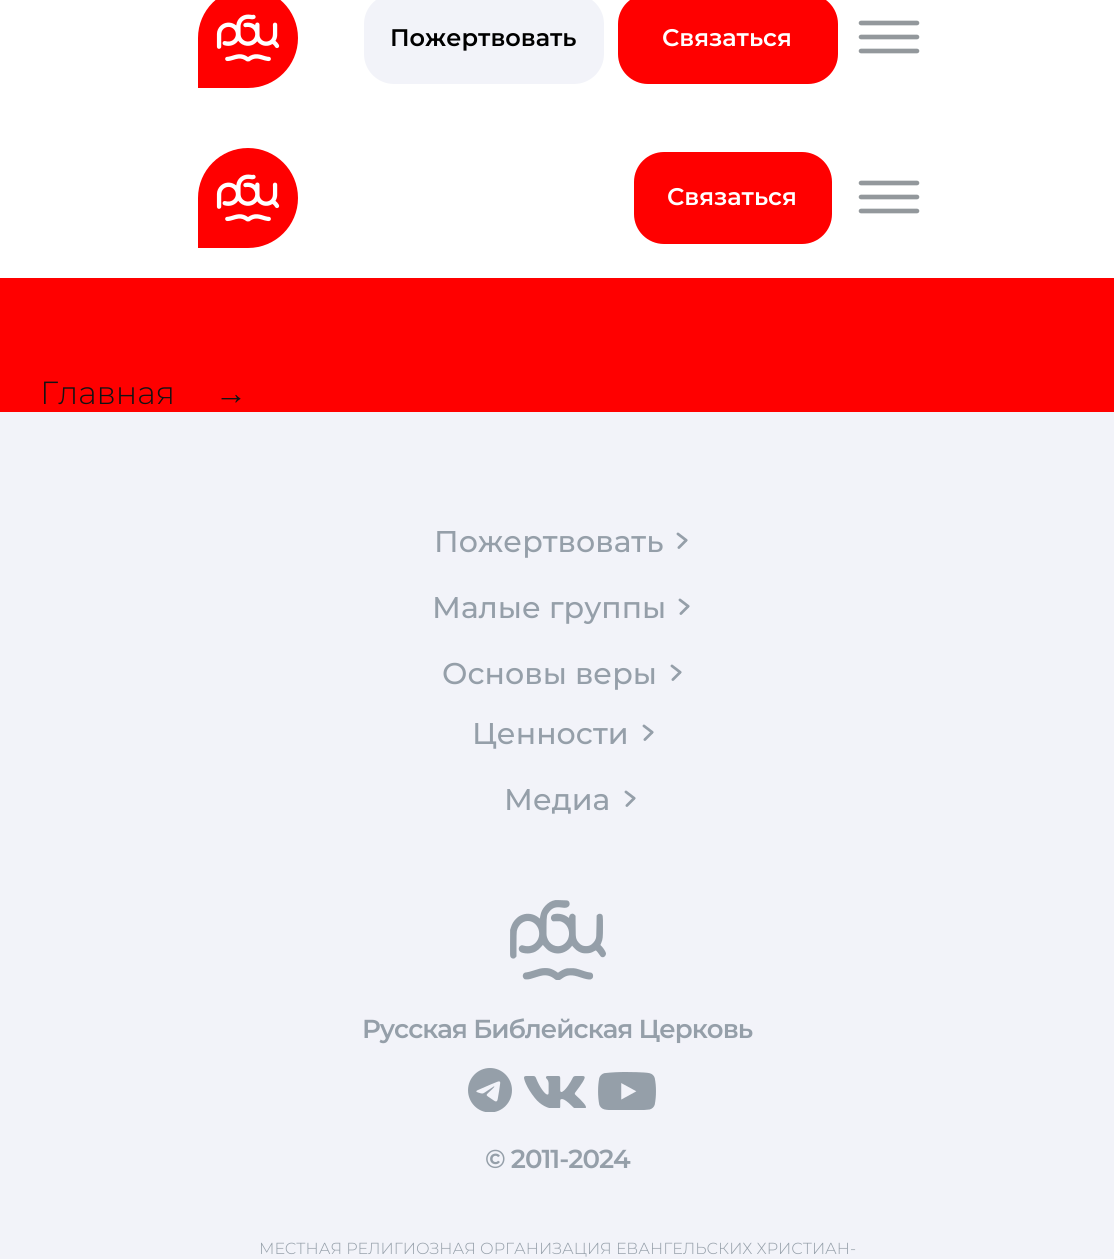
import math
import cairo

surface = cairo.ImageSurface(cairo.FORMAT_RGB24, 1114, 1259)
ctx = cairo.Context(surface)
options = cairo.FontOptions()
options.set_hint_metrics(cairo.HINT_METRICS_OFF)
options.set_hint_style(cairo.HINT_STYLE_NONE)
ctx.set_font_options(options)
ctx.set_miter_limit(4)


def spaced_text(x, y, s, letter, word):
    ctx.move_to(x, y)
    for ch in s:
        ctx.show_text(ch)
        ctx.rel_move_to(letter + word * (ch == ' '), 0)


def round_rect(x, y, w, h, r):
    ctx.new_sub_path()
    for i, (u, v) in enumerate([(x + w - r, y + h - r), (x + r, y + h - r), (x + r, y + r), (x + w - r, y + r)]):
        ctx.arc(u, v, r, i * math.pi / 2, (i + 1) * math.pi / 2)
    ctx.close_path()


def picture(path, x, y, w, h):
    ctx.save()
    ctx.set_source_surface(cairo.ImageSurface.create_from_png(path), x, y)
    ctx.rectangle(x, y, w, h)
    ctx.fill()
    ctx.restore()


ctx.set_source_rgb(1, 0, 0)
ctx.paint()
ctx.set_source_rgb(1, 1, 1)
ctx.rectangle(0, 0, 1114, 278)
ctx.fill()
picture("img1.png", 198, 0, 100, 88)
ctx.set_source_rgb(0.949, 0.953, 0.973)
round_rect(364, -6, 240, 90, 30)
ctx.fill()
ctx.select_font_face("Montserrat SemiBold")
ctx.set_font_size(24)
ctx.set_source_rgb(0, 0, 0)
ctx.move_to(390, 46)
ctx.show_text("Пожертвовать")
ctx.set_source_rgb(1, 0, 0)
round_rect(618, -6, 220, 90, 30)
ctx.fill()
ctx.set_source_rgb(1, 1, 1)
ctx.move_to(662, 46)
ctx.show_text("Связаться")
ctx.new_path()
ctx.move_to(861, 23)
ctx.line_to(917, 23)
ctx.move_to(861, 37)
ctx.line_to(917, 37)
ctx.move_to(861, 51)
ctx.line_to(917, 51)
ctx.set_source_rgb(0.576, 0.596, 0.612)
ctx.set_line_width(4.6)
ctx.set_line_cap(cairo.LINE_CAP_ROUND)
ctx.set_line_join(cairo.LINE_JOIN_ROUND)
ctx.stroke()
picture("img2.png", 198, 148, 100, 100)
ctx.set_source_rgb(1, 0, 0)
round_rect(634, 152, 198, 92, 30)
ctx.fill()
ctx.set_source_rgb(1, 1, 1)
ctx.move_to(667, 205)
ctx.show_text("Связаться")
ctx.new_path()
ctx.move_to(861, 183)
ctx.line_to(917, 183)
ctx.move_to(861, 197)
ctx.line_to(917, 197)
ctx.move_to(861, 211)
ctx.line_to(917, 211)
ctx.set_source_rgb(0.576, 0.596, 0.612)
ctx.stroke()
ctx.select_font_face("Montserrat Light")
ctx.set_font_size(32)
ctx.set_source_rgb(0.078, 0.078, 0.078)
ctx.move_to(40, 404)
ctx.show_text("Главная")
ctx.select_font_face("Liberation Sans")
ctx.move_to(215, 404)
ctx.show_text("→")
ctx.set_source_rgb(0.949, 0.953, 0.973)
ctx.rectangle(0, 412, 1114, 847)
ctx.fill()
ctx.select_font_face("Montserrat Medium")
ctx.set_font_size(30)
ctx.set_source_rgb(0.584, 0.624, 0.663)
ctx.move_to(434, 552)
ctx.show_text("Пожертвовать")
picture("img3.png", 676, 532, 12, 17)
ctx.move_to(432, 618)
ctx.show_text("Малые группы")
picture("img3.png", 678, 598, 12, 17)
ctx.move_to(442, 684)
ctx.show_text("Основы веры")
picture("img3.png", 670, 664, 12, 17)
ctx.move_to(472, 744)
ctx.show_text("Ценности")
picture("img3.png", 642, 724, 12, 17)
ctx.move_to(504, 810)
ctx.show_text("Медиа")
picture("img3.png", 624, 790, 12, 17)
picture("img4.png", 510, 900, 96, 80)
ctx.select_font_face("Montserrat SemiBold")
ctx.set_font_size(26)
spaced_text(362, 1038, "Русская Библейская Церковь", -1, 0)
picture("img5.png", 468, 1068, 44, 44)
picture("img6.png", 524, 1076, 62, 32)
picture("img7.png", 598, 1072, 58, 38)
spaced_text(485, 1168, "© 2011-2024", -1, 0)
ctx.select_font_face("Montserrat Light")
ctx.set_font_size(16)
ctx.move_to(259, 1254)
ctx.show_text("МЕСТНАЯ РЕЛИГИОЗНАЯ ОРГАНИЗАЦИЯ ЕВАНГЕЛЬСКИХ ХРИСТИАН-")
surface.write_to_png("page.png")
